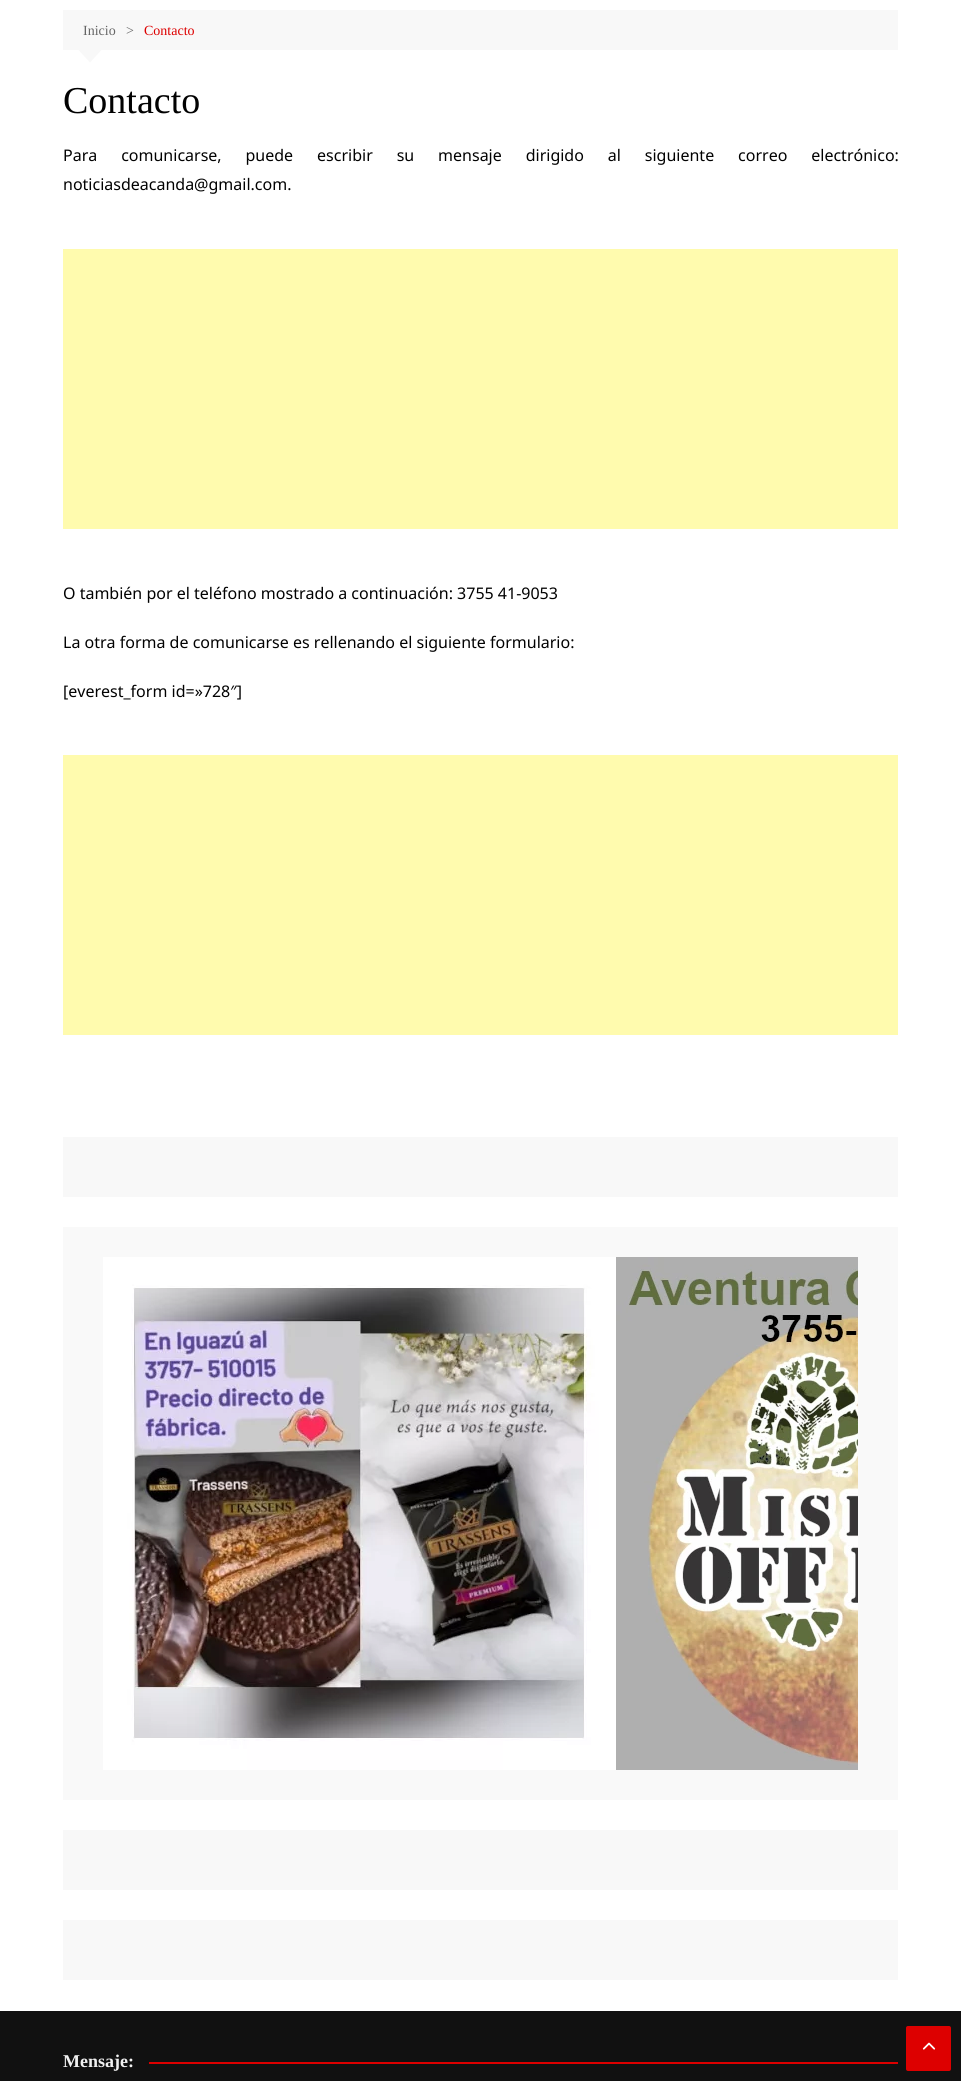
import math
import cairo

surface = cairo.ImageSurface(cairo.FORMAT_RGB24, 961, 2081)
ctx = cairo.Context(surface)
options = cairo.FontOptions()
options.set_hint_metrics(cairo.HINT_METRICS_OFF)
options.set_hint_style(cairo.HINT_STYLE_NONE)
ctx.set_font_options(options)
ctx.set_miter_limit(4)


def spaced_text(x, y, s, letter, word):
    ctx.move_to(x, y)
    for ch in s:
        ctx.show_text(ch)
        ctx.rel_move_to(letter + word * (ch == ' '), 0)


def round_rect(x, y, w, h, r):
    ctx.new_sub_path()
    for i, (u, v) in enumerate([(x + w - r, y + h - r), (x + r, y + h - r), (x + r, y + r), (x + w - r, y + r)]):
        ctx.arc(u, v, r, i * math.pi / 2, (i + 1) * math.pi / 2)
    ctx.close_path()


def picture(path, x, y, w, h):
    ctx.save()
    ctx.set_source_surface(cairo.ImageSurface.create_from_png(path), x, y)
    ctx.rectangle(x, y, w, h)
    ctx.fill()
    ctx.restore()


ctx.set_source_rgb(1, 1, 1)
ctx.paint()
ctx.set_source_rgb(0.969, 0.969, 0.969)
ctx.rectangle(63, 10, 835, 40)
ctx.fill()
ctx.select_font_face("Liberation Serif")
ctx.set_font_size(14)
ctx.set_source_rgb(0.4, 0.4, 0.4)
ctx.move_to(83, 35)
ctx.show_text("Inicio")
ctx.move_to(126, 35)
ctx.show_text(">")
ctx.set_source_rgb(0.867, 0, 0)
ctx.move_to(144, 35)
ctx.show_text("Contacto")
ctx.set_source_rgb(0.969, 0.969, 0.969)
ctx.new_path()
ctx.move_to(78, 49.5)
ctx.line_to(102, 49.5)
ctx.line_to(90, 62.5)
ctx.close_path()
ctx.fill()
ctx.set_font_size(38)
ctx.set_source_rgb(0.004, 0.004, 0.004)
ctx.move_to(63, 113)
ctx.show_text("Contacto")
ctx.select_font_face("Noto Sans")
ctx.set_font_size(16)
spaced_text(63, 161, "Para comunicarse, puede escribir su mensaje dirigido al siguiente correo electrónico:", 0, 19.75)
ctx.move_to(63, 190)
ctx.show_text("noticiasdeacanda@gmail.com.")
ctx.set_source_rgb(1, 0.984, 0.682)
ctx.rectangle(63, 249, 835, 280)
ctx.fill()
ctx.set_source_rgb(0.004, 0.004, 0.004)
ctx.move_to(63, 599)
ctx.show_text("O también por el teléfono mostrado a continuación: 3755 41-9053")
ctx.move_to(63, 648)
ctx.show_text("La otra forma de comunicarse es rellenando el siguiente formulario:")
ctx.move_to(63, 697)
ctx.show_text("[everest_form id=»728″]")
ctx.set_source_rgb(1, 0.984, 0.682)
ctx.rectangle(63, 755, 835, 280)
ctx.fill()
ctx.set_source_rgb(0.969, 0.969, 0.969)
ctx.rectangle(63, 1137, 835, 60)
ctx.fill()
ctx.set_source_rgb(0.973, 0.973, 0.973)
ctx.rectangle(63, 1227, 835, 573)
ctx.fill()
picture("img1.png", 103, 1257, 513, 513)
picture("img2.png", 616, 1257, 242, 513)
ctx.set_source_rgb(0.969, 0.969, 0.969)
ctx.rectangle(63, 1830, 835, 60)
ctx.fill()
ctx.rectangle(63, 1920, 835, 60)
ctx.fill()
ctx.set_source_rgb(0.067, 0.067, 0.067)
ctx.rectangle(0, 2011, 961, 70)
ctx.fill()
ctx.select_font_face("Liberation Serif", cairo.FONT_SLANT_NORMAL, cairo.FONT_WEIGHT_BOLD)
ctx.set_font_size(18)
ctx.set_source_rgb(0.945, 0.945, 0.945)
ctx.move_to(63, 2067)
ctx.show_text("Mensaje:")
ctx.set_source_rgb(0.867, 0, 0)
ctx.rectangle(149, 2062, 749, 2)
ctx.fill()
round_rect(906, 2026, 45, 45, 2)
ctx.fill()
picture("img3.png", 922, 2042, 14, 8)
surface.write_to_png("page.png")
